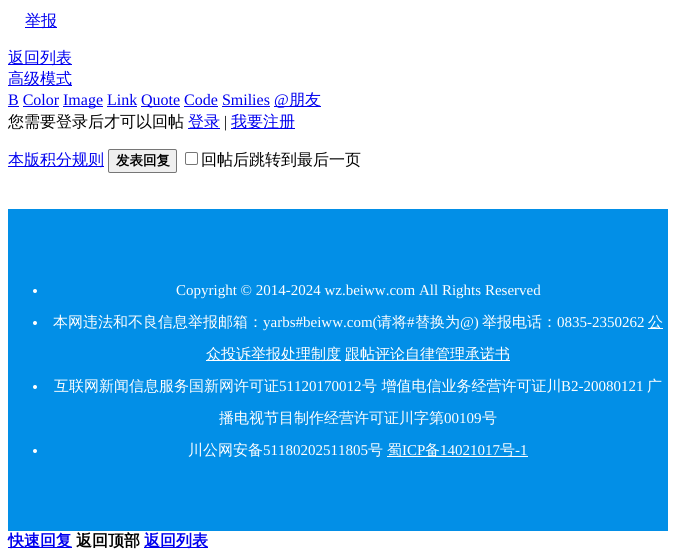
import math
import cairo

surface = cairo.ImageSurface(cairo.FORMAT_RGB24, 676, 560)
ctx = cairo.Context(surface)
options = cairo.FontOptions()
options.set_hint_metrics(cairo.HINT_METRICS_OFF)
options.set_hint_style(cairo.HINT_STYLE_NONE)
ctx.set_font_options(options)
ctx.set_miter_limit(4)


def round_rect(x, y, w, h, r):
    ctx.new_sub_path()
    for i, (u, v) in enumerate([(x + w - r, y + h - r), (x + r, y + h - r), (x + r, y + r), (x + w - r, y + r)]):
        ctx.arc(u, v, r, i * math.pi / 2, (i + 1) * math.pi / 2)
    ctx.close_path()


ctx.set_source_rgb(1, 1, 1)
ctx.paint()
ctx.set_source_rgb(0, 0, 0.933)
ctx.rectangle(25, 27, 32, 1)
ctx.fill()
ctx.select_font_face("WenQuanYi Zen Hei Medium")
ctx.set_font_size(16)
ctx.move_to(25, 26)
ctx.show_text("举报")
ctx.rectangle(8, 64, 64, 1)
ctx.fill()
ctx.move_to(8, 63)
ctx.show_text("返回列表")
ctx.rectangle(8, 85, 64, 1)
ctx.fill()
ctx.move_to(8, 84)
ctx.show_text("高级模式")
ctx.select_font_face("Liberation Serif")
ctx.move_to(8, 105)
ctx.show_text("B Color")
ctx.rectangle(8, 106, 11, 1)
ctx.fill()
ctx.rectangle(63, 106, 40, 1)
ctx.fill()
ctx.move_to(63, 105)
ctx.show_text("Image Link")
ctx.rectangle(141, 106, 39, 1)
ctx.fill()
ctx.move_to(141, 105)
ctx.show_text("Quote Code Smilies")
ctx.rectangle(274, 106, 47, 1)
ctx.fill()
ctx.move_to(274, 105)
ctx.show_text("@")
ctx.select_font_face("WenQuanYi Zen Hei Medium")
ctx.move_to(289, 105)
ctx.show_text("朋友")
ctx.rectangle(23, 106, 36, 1)
ctx.fill()
ctx.rectangle(107, 106, 30, 1)
ctx.fill()
ctx.rectangle(184, 106, 34, 1)
ctx.fill()
ctx.rectangle(222, 106, 48, 1)
ctx.fill()
ctx.set_source_rgb(0, 0, 0)
ctx.move_to(8, 127)
ctx.show_text("您需要登录后才可以回帖")
ctx.set_source_rgb(0, 0, 0.933)
ctx.rectangle(188, 128, 32, 1)
ctx.fill()
ctx.move_to(188, 127)
ctx.show_text("登录")
ctx.select_font_face("Liberation Serif")
ctx.set_source_rgb(0, 0, 0)
ctx.move_to(224, 127)
ctx.show_text("|")
ctx.set_source_rgb(0, 0, 0.933)
ctx.rectangle(231, 128, 64, 1)
ctx.fill()
ctx.select_font_face("WenQuanYi Zen Hei Medium")
ctx.move_to(231, 127)
ctx.show_text("我要注册")
ctx.rectangle(8, 166, 96, 1)
ctx.fill()
ctx.move_to(8, 165)
ctx.show_text("本版积分规则")
ctx.set_source_rgb(0.937, 0.937, 0.937)
round_rect(108.5, 149.5, 68, 23, 1.5)
ctx.fill_preserve()
ctx.set_source_rgb(0.463, 0.463, 0.463)
ctx.set_line_width(1)
ctx.stroke()
ctx.select_font_face("WenQuanYi Zen Hei", cairo.FONT_SLANT_NORMAL, cairo.FONT_WEIGHT_BOLD)
ctx.set_font_size(13.5)
ctx.set_source_rgb(0, 0, 0)
ctx.move_to(116, 165)
ctx.show_text("发表回复")
round_rect(185.5, 152.5, 12, 12, 1.5)
ctx.set_source_rgb(0.463, 0.463, 0.463)
ctx.stroke()
ctx.select_font_face("WenQuanYi Zen Hei Medium")
ctx.set_font_size(16)
ctx.set_source_rgb(0, 0, 0)
ctx.move_to(201, 165)
ctx.show_text("回帖后跳转到最后一页")
ctx.set_source_rgb(0.008, 0.561, 0.906)
ctx.rectangle(8, 209, 660, 322)
ctx.fill()
ctx.set_source_rgb(1, 1, 1)
ctx.arc(35, 291, 2, 0, 2 * math.pi)
ctx.fill()
ctx.select_font_face("Liberation Serif")
ctx.set_font_size(15)
ctx.move_to(176, 295)
ctx.show_text("Copyright © 2014-2024 wz.beiww.com All Rights Reserved")
ctx.new_path()
ctx.arc(35, 323, 2, 0, 2 * math.pi)
ctx.fill()
ctx.select_font_face("WenQuanYi Zen Hei Medium")
ctx.move_to(53, 327)
ctx.show_text("本网违法和不良信息举报邮箱：")
ctx.select_font_face("Liberation Serif")
ctx.move_to(263, 327)
ctx.show_text("yarbs#beiww.com(")
ctx.select_font_face("WenQuanYi Zen Hei Medium")
ctx.move_to(377, 327)
ctx.show_text("请将")
ctx.select_font_face("Liberation Serif")
ctx.move_to(407, 327)
ctx.show_text("#")
ctx.select_font_face("WenQuanYi Zen Hei Medium")
ctx.move_to(415, 327)
ctx.show_text("替换为")
ctx.select_font_face("Liberation Serif")
ctx.move_to(460, 327)
ctx.show_text("@)")
ctx.select_font_face("WenQuanYi Zen Hei Medium")
ctx.move_to(482, 327)
ctx.show_text("举报电话：")
ctx.select_font_face("Liberation Serif")
ctx.move_to(557, 327)
ctx.show_text("0835-2350262")
ctx.rectangle(648, 328, 15, 1)
ctx.fill()
ctx.select_font_face("WenQuanYi Zen Hei Medium")
ctx.move_to(648, 327)
ctx.show_text("公")
ctx.rectangle(206, 360, 135, 1)
ctx.fill()
ctx.move_to(206, 359)
ctx.show_text("众投诉举报处理制度")
ctx.rectangle(345, 360, 165, 1)
ctx.fill()
ctx.move_to(345, 359)
ctx.show_text("跟帖评论自律管理承诺书")
ctx.new_path()
ctx.arc(35, 387, 2, 0, 2 * math.pi)
ctx.fill()
ctx.move_to(54, 391)
ctx.show_text("互联网新闻信息服务国新网许可证")
ctx.select_font_face("Liberation Serif")
ctx.move_to(279, 391)
ctx.show_text("51120170012")
ctx.select_font_face("WenQuanYi Zen Hei Medium")
ctx.move_to(362, 391)
ctx.show_text("号 增值电信业务经营许可证川")
ctx.select_font_face("Liberation Serif")
ctx.move_to(561, 391)
ctx.show_text("B2-20080121")
ctx.select_font_face("WenQuanYi Zen Hei Medium")
ctx.move_to(647, 391)
ctx.show_text("广")
ctx.move_to(219, 423)
ctx.show_text("播电视节目制作经营许可证川字第")
ctx.select_font_face("Liberation Serif")
ctx.move_to(444, 423)
ctx.show_text("00109")
ctx.select_font_face("WenQuanYi Zen Hei Medium")
ctx.move_to(482, 423)
ctx.show_text("号")
ctx.new_path()
ctx.arc(35, 451, 2, 0, 2 * math.pi)
ctx.fill()
ctx.move_to(188, 455)
ctx.show_text("川公网安备")
ctx.select_font_face("Liberation Serif")
ctx.move_to(263, 455)
ctx.show_text("51180202511805")
ctx.select_font_face("WenQuanYi Zen Hei Medium")
ctx.move_to(368, 455)
ctx.show_text("号")
ctx.rectangle(387, 456, 141, 1)
ctx.fill()
ctx.move_to(387, 455)
ctx.show_text("蜀")
ctx.select_font_face("Liberation Serif")
ctx.move_to(402, 455)
ctx.show_text("ICP")
ctx.select_font_face("WenQuanYi Zen Hei Medium")
ctx.move_to(425, 455)
ctx.show_text("备")
ctx.select_font_face("Liberation Serif")
ctx.move_to(440, 455)
ctx.show_text("14021017")
ctx.select_font_face("WenQuanYi Zen Hei Medium")
ctx.move_to(500, 455)
ctx.show_text("号")
ctx.select_font_face("Liberation Serif")
ctx.move_to(515, 455)
ctx.show_text("-1")
ctx.set_source_rgb(0, 0, 0.933)
ctx.rectangle(8, 547, 64, 1)
ctx.fill()
ctx.select_font_face("WenQuanYi Zen Hei", cairo.FONT_SLANT_NORMAL, cairo.FONT_WEIGHT_BOLD)
ctx.set_font_size(16)
ctx.move_to(8, 546)
ctx.show_text("快速回复")
ctx.set_source_rgb(0, 0, 0)
ctx.move_to(76, 546)
ctx.show_text("返回顶部")
ctx.set_source_rgb(0, 0, 0.933)
ctx.rectangle(144, 547, 64, 1)
ctx.fill()
ctx.move_to(144, 546)
ctx.show_text("返回列表")
surface.write_to_png("page.png")
